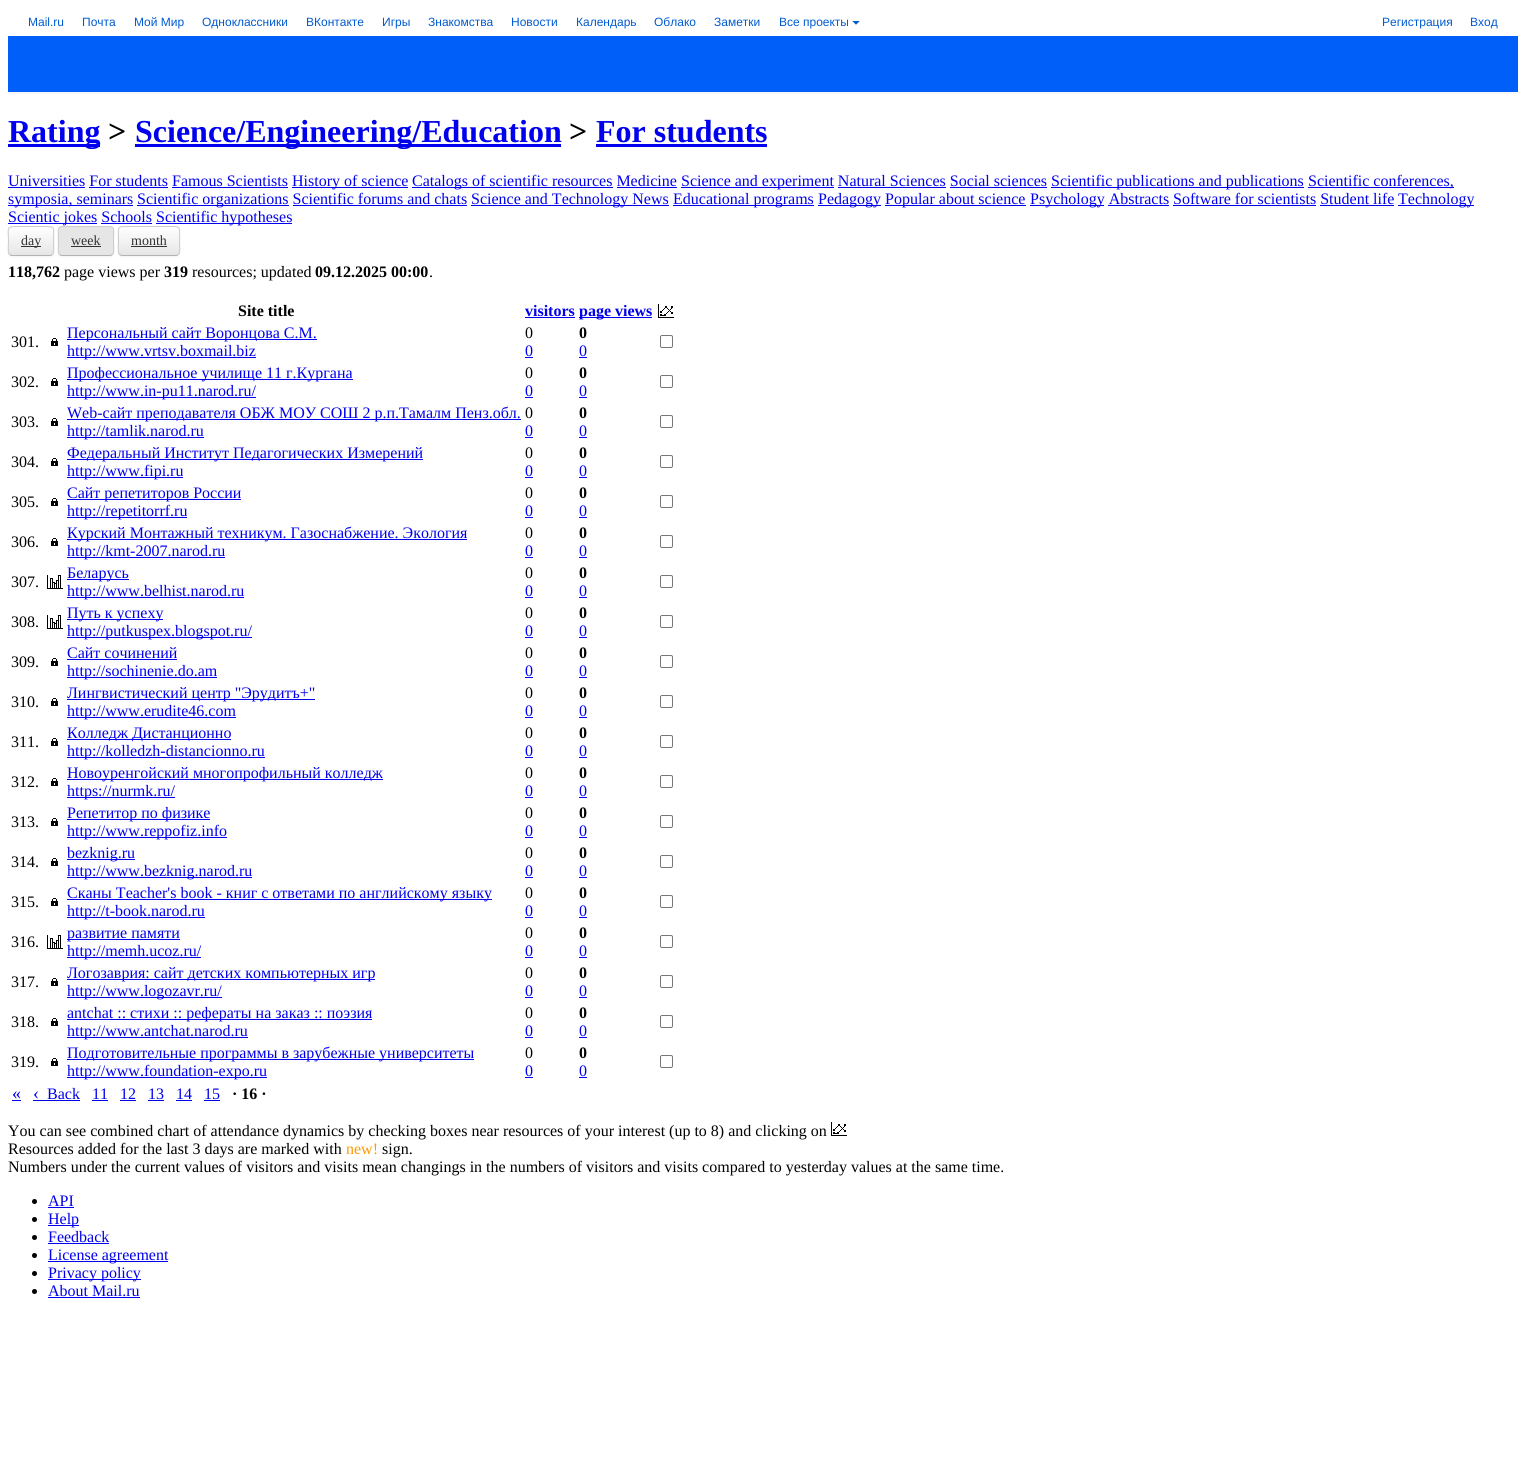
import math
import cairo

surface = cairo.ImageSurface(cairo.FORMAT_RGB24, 1526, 1474)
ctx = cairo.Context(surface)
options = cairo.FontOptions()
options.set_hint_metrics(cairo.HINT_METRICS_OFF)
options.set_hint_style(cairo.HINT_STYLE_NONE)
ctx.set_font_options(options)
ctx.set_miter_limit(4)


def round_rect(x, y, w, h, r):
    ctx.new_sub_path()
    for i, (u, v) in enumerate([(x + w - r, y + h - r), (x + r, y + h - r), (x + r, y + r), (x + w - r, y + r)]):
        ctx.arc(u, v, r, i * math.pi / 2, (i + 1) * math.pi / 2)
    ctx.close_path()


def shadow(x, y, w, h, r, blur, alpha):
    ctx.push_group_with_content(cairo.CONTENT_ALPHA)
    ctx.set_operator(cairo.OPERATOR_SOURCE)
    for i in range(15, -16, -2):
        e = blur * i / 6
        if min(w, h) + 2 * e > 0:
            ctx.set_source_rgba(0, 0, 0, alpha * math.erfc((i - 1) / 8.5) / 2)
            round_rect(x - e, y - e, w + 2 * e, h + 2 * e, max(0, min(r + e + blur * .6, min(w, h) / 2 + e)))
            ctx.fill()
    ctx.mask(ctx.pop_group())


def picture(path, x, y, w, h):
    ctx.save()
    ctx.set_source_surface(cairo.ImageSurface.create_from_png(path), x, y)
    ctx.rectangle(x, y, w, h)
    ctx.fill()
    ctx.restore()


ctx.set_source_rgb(1, 1, 1)
ctx.paint()
ctx.select_font_face("Liberation Sans")
ctx.set_font_size(12)
ctx.set_source_rgb(0, 0.357, 0.82)
ctx.move_to(28, 26)
ctx.show_text("Mail.ru")
ctx.move_to(82, 26)
ctx.show_text("Почта")
ctx.move_to(134, 26)
ctx.show_text("Мой Мир")
ctx.move_to(202, 26)
ctx.show_text("Одноклассники")
ctx.move_to(306, 26)
ctx.show_text("ВКонтакте")
ctx.move_to(382, 26)
ctx.show_text("Игры")
ctx.move_to(428, 26)
ctx.show_text("Знакомства")
ctx.move_to(511, 26)
ctx.show_text("Новости")
ctx.move_to(576, 26)
ctx.show_text("Календарь")
ctx.move_to(654, 26)
ctx.show_text("Облако")
ctx.move_to(714, 26)
ctx.show_text("Заметки")
ctx.move_to(779, 26)
ctx.show_text("Все проекты")
ctx.new_path()
ctx.move_to(852, 21)
ctx.line_to(860, 21)
ctx.line_to(856, 25)
ctx.close_path()
ctx.fill()
ctx.set_source_rgb(1, 1, 1)
ctx.new_path()
ctx.move_to(860, 21)
ctx.line_to(860, 29)
ctx.line_to(856, 25)
ctx.close_path()
ctx.move_to(852, 29)
ctx.line_to(852, 21)
ctx.line_to(856, 25)
ctx.close_path()
ctx.fill()
ctx.set_source_rgb(0, 0.357, 0.82)
ctx.move_to(1382, 26)
ctx.show_text("Регистрация")
ctx.move_to(1470, 26)
ctx.show_text("Вход")
ctx.set_source_rgb(0.961, 0.961, 0.961)
ctx.rectangle(8, 92, 1510, 2)
ctx.fill()
ctx.set_source_rgb(0, 0.373, 0.976)
ctx.rectangle(8, 36, 1510, 56)
ctx.fill()
ctx.set_source_rgb(0, 0, 0.933)
ctx.rectangle(8, 144, 92, 3)
ctx.fill()
ctx.select_font_face("Liberation Serif", cairo.FONT_SLANT_NORMAL, cairo.FONT_WEIGHT_BOLD)
ctx.set_font_size(32)
ctx.move_to(8, 142)
ctx.show_text("Rating")
ctx.set_source_rgb(0, 0, 0)
ctx.move_to(108, 142)
ctx.show_text(">")
ctx.set_source_rgb(0, 0, 0.933)
ctx.rectangle(135, 144, 426, 3)
ctx.fill()
ctx.move_to(135, 142)
ctx.show_text("Science/Engineering/Education")
ctx.set_source_rgb(0, 0, 0)
ctx.move_to(569, 142)
ctx.show_text(">")
ctx.set_source_rgb(0, 0, 0.933)
ctx.move_to(596, 142)
ctx.show_text("For students")
ctx.rectangle(596, 144, 171, 3)
ctx.fill()
ctx.select_font_face("Liberation Serif")
ctx.set_font_size(16)
ctx.move_to(8, 186)
ctx.show_text("Universities For students Famous Scientists")
ctx.rectangle(8, 187, 77, 1)
ctx.fill()
ctx.rectangle(292, 187, 116, 1)
ctx.fill()
ctx.move_to(292, 186)
ctx.show_text("History of science")
ctx.rectangle(412, 187, 201, 1)
ctx.fill()
ctx.move_to(412, 186)
ctx.show_text("Catalogs of scientific resources Medicine")
ctx.rectangle(681, 187, 153, 1)
ctx.fill()
ctx.move_to(681, 186)
ctx.show_text("Science and experiment Natural Sciences Social sciences")
ctx.rectangle(1051, 187, 253, 1)
ctx.fill()
ctx.move_to(1051, 186)
ctx.show_text("Scientific publications and publications")
ctx.rectangle(1308, 187, 146, 1)
ctx.fill()
ctx.move_to(1308, 186)
ctx.show_text("Scientific conferences,")
ctx.rectangle(89, 187, 79, 1)
ctx.fill()
ctx.rectangle(172, 187, 116, 1)
ctx.fill()
ctx.rectangle(617, 187, 60, 1)
ctx.fill()
ctx.rectangle(838, 187, 108, 1)
ctx.fill()
ctx.rectangle(950, 187, 97, 1)
ctx.fill()
ctx.rectangle(8, 205, 125, 1)
ctx.fill()
ctx.move_to(8, 204)
ctx.show_text("symposia, seminars")
ctx.rectangle(137, 205, 152, 1)
ctx.fill()
ctx.move_to(137, 204)
ctx.show_text("Scientific organizations Scientific forums and chats")
ctx.rectangle(471, 205, 198, 1)
ctx.fill()
ctx.move_to(471, 204)
ctx.show_text("Science and Technology News")
ctx.rectangle(673, 205, 141, 1)
ctx.fill()
ctx.move_to(673, 204)
ctx.show_text("Educational programs")
ctx.rectangle(818, 205, 63, 1)
ctx.fill()
ctx.move_to(818, 204)
ctx.show_text("Pedagogy")
ctx.rectangle(885, 205, 141, 1)
ctx.fill()
ctx.move_to(885, 204)
ctx.show_text("Popular about science")
ctx.rectangle(1030, 205, 74, 1)
ctx.fill()
ctx.move_to(1030, 204)
ctx.show_text("Psychology Abstracts Software for scientists Student life")
ctx.rectangle(1398, 205, 76, 1)
ctx.fill()
ctx.move_to(1398, 204)
ctx.show_text("Technology")
ctx.rectangle(293, 205, 174, 1)
ctx.fill()
ctx.rectangle(1108, 205, 61, 1)
ctx.fill()
ctx.rectangle(1173, 205, 143, 1)
ctx.fill()
ctx.rectangle(1320, 205, 74, 1)
ctx.fill()
ctx.rectangle(8, 223, 89, 1)
ctx.fill()
ctx.move_to(8, 222)
ctx.show_text("Scientic jokes Schools")
ctx.rectangle(156, 223, 136, 1)
ctx.fill()
ctx.move_to(156, 222)
ctx.show_text("Scientific hypotheses")
ctx.rectangle(101, 223, 51, 1)
ctx.fill()
ctx.set_source_rgb(0, 0, 0)
shadow(8, 227, 46, 30, 4, 1, 0.05)
ctx.set_source_rgb(0.961, 0.961, 0.961)
round_rect(8, 226, 46, 30, 4)
ctx.fill()
ctx.save()
round_rect(8, 226, 46, 30, 4)
ctx.clip()
gradient = cairo.LinearGradient(31, 227, 31, 255)
gradient.add_color_stop_rgba(0, 1, 1, 1, 1)
gradient.add_color_stop_rgba(1, 0.902, 0.902, 0.902, 1)
ctx.set_source(gradient)
ctx.rectangle(8, 227, 46, 28)
ctx.fill()
ctx.restore()
ctx.new_path()
ctx.move_to(52.5, 254.5)
ctx.curve_to(52, 255, 51, 255.5, 50, 255.5)
ctx.line_to(12, 255.5)
ctx.curve_to(11, 255.5, 10, 255, 9.5, 254.5)
ctx.set_source_rgb(0.702, 0.702, 0.702)
ctx.set_line_width(1)
ctx.stroke()
ctx.new_path()
ctx.move_to(9.5, 254.5)
ctx.curve_to(7.5, 252.5, 8.5, 244, 8.5, 241)
ctx.curve_to(8.5, 227.5, 5.5, 226.5, 18.5, 226.5)
ctx.line_to(43.5, 226.5)
ctx.curve_to(56.5, 226.5, 53.5, 227.5, 53.5, 241)
ctx.curve_to(53.5, 244, 54.5, 252.5, 52.5, 254.5)
ctx.set_source_rgb(0.8, 0.8, 0.8)
ctx.stroke()
ctx.set_source_rgb(0.2, 0.2, 0.2)
ctx.rectangle(21, 246, 20, 1)
ctx.fill()
ctx.set_font_size(14)
ctx.move_to(21, 245)
ctx.show_text("day")
ctx.set_source_rgb(0, 0, 0)
shadow(58, 227, 56, 30, 4, 1, 0.05)
ctx.set_source_rgb(0.902, 0.902, 0.902)
round_rect(58, 226, 56, 30, 4)
ctx.fill()
ctx.new_path()
ctx.move_to(112.5, 254.5)
ctx.line_to(110.5, 255.5)
ctx.line_to(61.5, 255.5)
ctx.line_to(59.5, 254.5)
ctx.set_source_rgb(0.702, 0.702, 0.702)
ctx.stroke()
ctx.new_path()
ctx.move_to(59.5, 254.5)
ctx.curve_to(57.5, 252.5, 58.5, 244, 58.5, 241)
ctx.curve_to(58.5, 226, 55.5, 226.5, 70, 226.5)
ctx.line_to(102, 226.5)
ctx.curve_to(116.5, 226.5, 113.5, 226, 113.5, 241)
ctx.curve_to(113.5, 244, 114.5, 252.5, 112.5, 254.5)
ctx.set_source_rgb(0.8, 0.8, 0.8)
ctx.stroke()
ctx.set_source_rgb(0.2, 0.2, 0.2)
ctx.move_to(71, 245)
ctx.show_text("week")
ctx.rectangle(71, 246, 30, 1)
ctx.fill()
ctx.set_source_rgb(0, 0, 0)
shadow(118, 227, 62, 30, 4, 1, 0.05)
ctx.set_source_rgb(0.961, 0.961, 0.961)
round_rect(118, 226, 62, 30, 4)
ctx.fill()
ctx.save()
round_rect(118, 226, 62, 30, 4)
ctx.clip()
gradient = cairo.LinearGradient(149, 227, 149, 255)
gradient.add_color_stop_rgba(0, 1, 1, 1, 1)
gradient.add_color_stop_rgba(1, 0.902, 0.902, 0.902, 1)
ctx.set_source(gradient)
ctx.rectangle(118, 227, 62, 28)
ctx.fill()
ctx.restore()
ctx.set_source_rgb(1, 1, 1)
ctx.new_path()
ctx.move_to(122, 228)
ctx.line_to(176, 228)
ctx.curve_to(178, 228, 179, 229, 179, 231)
ctx.curve_to(179, 225, 171, 227, 167, 227)
ctx.line_to(131, 227)
ctx.curve_to(127, 227, 119, 225, 119, 231)
ctx.curve_to(119, 229, 120, 228, 122, 228)
ctx.close_path()
ctx.fill()
ctx.new_path()
ctx.move_to(178.5, 254.5)
ctx.line_to(176.5, 255.5)
ctx.line_to(121.5, 255.5)
ctx.line_to(119.5, 254.5)
ctx.set_source_rgb(0.702, 0.702, 0.702)
ctx.stroke()
ctx.new_path()
ctx.move_to(119.5, 254.5)
ctx.curve_to(117.5, 252.5, 118.5, 244, 118.5, 241)
ctx.curve_to(118.5, 225.5, 116, 226.5, 131, 226.5)
ctx.line_to(167, 226.5)
ctx.curve_to(182, 226.5, 179.5, 225.5, 179.5, 241)
ctx.curve_to(179.5, 244, 180.5, 252.5, 178.5, 254.5)
ctx.set_source_rgb(0.8, 0.8, 0.8)
ctx.stroke()
ctx.set_source_rgb(0.2, 0.2, 0.2)
ctx.move_to(131, 245)
ctx.show_text("month")
ctx.rectangle(131, 246, 36, 1)
ctx.fill()
ctx.select_font_face("Liberation Serif", cairo.FONT_SLANT_NORMAL, cairo.FONT_WEIGHT_BOLD)
ctx.set_font_size(16)
ctx.set_source_rgb(0, 0, 0)
ctx.move_to(8, 277)
ctx.show_text("118,762")
ctx.select_font_face("Liberation Serif")
ctx.move_to(64, 277)
ctx.show_text("page views per")
ctx.select_font_face("Liberation Serif", cairo.FONT_SLANT_NORMAL, cairo.FONT_WEIGHT_BOLD)
ctx.move_to(164, 277)
ctx.show_text("319")
ctx.select_font_face("Liberation Serif")
ctx.move_to(192, 277)
ctx.show_text("resources; updated")
ctx.select_font_face("Liberation Serif", cairo.FONT_SLANT_NORMAL, cairo.FONT_WEIGHT_BOLD)
ctx.move_to(315, 277)
ctx.show_text("09.12.2025 00:00")
ctx.select_font_face("Liberation Serif")
ctx.move_to(429, 277)
ctx.show_text(".")
ctx.select_font_face("Liberation Serif", cairo.FONT_SLANT_NORMAL, cairo.FONT_WEIGHT_BOLD)
ctx.move_to(238, 316)
ctx.show_text("Site title")
ctx.set_source_rgb(0, 0, 0.933)
ctx.move_to(525, 316)
ctx.show_text("visitors")
ctx.rectangle(525, 317, 50, 1)
ctx.fill()
ctx.rectangle(579, 317, 73, 1)
ctx.fill()
ctx.move_to(579, 316)
ctx.show_text("page views")
picture("img1.png", 658, 304, 16, 14)
ctx.select_font_face("Liberation Serif")
ctx.set_source_rgb(0, 0, 0)
ctx.move_to(11, 347)
ctx.show_text("301.")
picture("img2.png", 51, 338, 7, 8)
ctx.set_source_rgb(0, 0, 0.933)
ctx.rectangle(67, 339, 250, 1)
ctx.fill()
ctx.move_to(67, 338)
ctx.show_text("Персональный сайт Воронцова С.М.")
ctx.rectangle(67, 357, 189, 1)
ctx.fill()
ctx.move_to(67, 356)
ctx.show_text("http://www.vrtsv.boxmail.biz")
ctx.set_source_rgb(0, 0, 0)
ctx.move_to(525, 338)
ctx.show_text("0")
ctx.set_source_rgb(0, 0, 0.933)
ctx.move_to(525, 356)
ctx.show_text("0")
ctx.rectangle(525, 357, 8, 1)
ctx.fill()
ctx.select_font_face("Liberation Serif", cairo.FONT_SLANT_NORMAL, cairo.FONT_WEIGHT_BOLD)
ctx.set_source_rgb(0, 0, 0)
ctx.move_to(579, 338)
ctx.show_text("0")
ctx.select_font_face("Liberation Serif")
ctx.set_source_rgb(0, 0, 0.933)
ctx.move_to(579, 356)
ctx.show_text("0")
ctx.rectangle(579, 357, 8, 1)
ctx.fill()
round_rect(660.5, 335.5, 12, 12, 1.5)
ctx.set_source_rgb(0.463, 0.463, 0.463)
ctx.stroke()
ctx.set_source_rgb(0, 0, 0)
ctx.move_to(11, 387)
ctx.show_text("302.")
picture("img2.png", 51, 378, 7, 8)
ctx.set_source_rgb(0, 0, 0.933)
ctx.rectangle(67, 379, 286, 1)
ctx.fill()
ctx.move_to(67, 378)
ctx.show_text("Профессиональное училище 11 г.Кургана")
ctx.rectangle(67, 397, 189, 1)
ctx.fill()
ctx.move_to(67, 396)
ctx.show_text("http://www.in-pu11.narod.ru/")
ctx.set_source_rgb(0, 0, 0)
ctx.move_to(525, 378)
ctx.show_text("0")
ctx.set_source_rgb(0, 0, 0.933)
ctx.move_to(525, 396)
ctx.show_text("0")
ctx.rectangle(525, 397, 8, 1)
ctx.fill()
ctx.select_font_face("Liberation Serif", cairo.FONT_SLANT_NORMAL, cairo.FONT_WEIGHT_BOLD)
ctx.set_source_rgb(0, 0, 0)
ctx.move_to(579, 378)
ctx.show_text("0")
ctx.select_font_face("Liberation Serif")
ctx.set_source_rgb(0, 0, 0.933)
ctx.move_to(579, 396)
ctx.show_text("0")
ctx.rectangle(579, 397, 8, 1)
ctx.fill()
round_rect(660.5, 375.5, 12, 12, 1.5)
ctx.set_source_rgb(0.463, 0.463, 0.463)
ctx.stroke()
ctx.set_source_rgb(0, 0, 0)
ctx.move_to(11, 427)
ctx.show_text("303.")
picture("img2.png", 51, 418, 7, 8)
ctx.set_source_rgb(0, 0, 0.933)
ctx.rectangle(67, 419, 454, 1)
ctx.fill()
ctx.move_to(67, 418)
ctx.show_text("Web-сайт преподавателя ОБЖ МОУ СОШ 2 р.п.Тамалм Пенз.обл.")
ctx.rectangle(67, 437, 137, 1)
ctx.fill()
ctx.move_to(67, 436)
ctx.show_text("http://tamlik.narod.ru")
ctx.set_source_rgb(0, 0, 0)
ctx.move_to(525, 418)
ctx.show_text("0")
ctx.set_source_rgb(0, 0, 0.933)
ctx.move_to(525, 436)
ctx.show_text("0")
ctx.rectangle(525, 437, 8, 1)
ctx.fill()
ctx.select_font_face("Liberation Serif", cairo.FONT_SLANT_NORMAL, cairo.FONT_WEIGHT_BOLD)
ctx.set_source_rgb(0, 0, 0)
ctx.move_to(579, 418)
ctx.show_text("0")
ctx.select_font_face("Liberation Serif")
ctx.set_source_rgb(0, 0, 0.933)
ctx.move_to(579, 436)
ctx.show_text("0")
ctx.rectangle(579, 437, 8, 1)
ctx.fill()
round_rect(660.5, 415.5, 12, 12, 1.5)
ctx.set_source_rgb(0.463, 0.463, 0.463)
ctx.stroke()
ctx.set_source_rgb(0, 0, 0)
ctx.move_to(11, 467)
ctx.show_text("304.")
picture("img2.png", 51, 458, 7, 8)
ctx.set_source_rgb(0, 0, 0.933)
ctx.rectangle(67, 459, 356, 1)
ctx.fill()
ctx.move_to(67, 458)
ctx.show_text("Федеральный Институт Педагогических Измерений")
ctx.rectangle(67, 477, 116, 1)
ctx.fill()
ctx.move_to(67, 476)
ctx.show_text("http://www.fipi.ru")
ctx.set_source_rgb(0, 0, 0)
ctx.move_to(525, 458)
ctx.show_text("0")
ctx.set_source_rgb(0, 0, 0.933)
ctx.move_to(525, 476)
ctx.show_text("0")
ctx.rectangle(525, 477, 8, 1)
ctx.fill()
ctx.select_font_face("Liberation Serif", cairo.FONT_SLANT_NORMAL, cairo.FONT_WEIGHT_BOLD)
ctx.set_source_rgb(0, 0, 0)
ctx.move_to(579, 458)
ctx.show_text("0")
ctx.select_font_face("Liberation Serif")
ctx.set_source_rgb(0, 0, 0.933)
ctx.move_to(579, 476)
ctx.show_text("0")
ctx.rectangle(579, 477, 8, 1)
ctx.fill()
round_rect(660.5, 455.5, 12, 12, 1.5)
ctx.set_source_rgb(0.463, 0.463, 0.463)
ctx.stroke()
ctx.set_source_rgb(0, 0, 0)
ctx.move_to(11, 507)
ctx.show_text("305.")
picture("img2.png", 51, 498, 7, 8)
ctx.set_source_rgb(0, 0, 0.933)
ctx.rectangle(67, 499, 174, 1)
ctx.fill()
ctx.move_to(67, 498)
ctx.show_text("Сайт репетиторов России")
ctx.rectangle(67, 517, 120, 1)
ctx.fill()
ctx.move_to(67, 516)
ctx.show_text("http://repetitorrf.ru")
ctx.set_source_rgb(0, 0, 0)
ctx.move_to(525, 498)
ctx.show_text("0")
ctx.set_source_rgb(0, 0, 0.933)
ctx.move_to(525, 516)
ctx.show_text("0")
ctx.rectangle(525, 517, 8, 1)
ctx.fill()
ctx.select_font_face("Liberation Serif", cairo.FONT_SLANT_NORMAL, cairo.FONT_WEIGHT_BOLD)
ctx.set_source_rgb(0, 0, 0)
ctx.move_to(579, 498)
ctx.show_text("0")
ctx.select_font_face("Liberation Serif")
ctx.set_source_rgb(0, 0, 0.933)
ctx.move_to(579, 516)
ctx.show_text("0")
ctx.rectangle(579, 517, 8, 1)
ctx.fill()
round_rect(660.5, 495.5, 12, 12, 1.5)
ctx.set_source_rgb(0.463, 0.463, 0.463)
ctx.stroke()
ctx.set_source_rgb(0, 0, 0)
ctx.move_to(11, 547)
ctx.show_text("306.")
picture("img2.png", 51, 538, 7, 8)
ctx.set_source_rgb(0, 0, 0.933)
ctx.rectangle(67, 539, 400, 1)
ctx.fill()
ctx.move_to(67, 538)
ctx.show_text("Курский Монтажный техникум. Газоснабжение. Экология")
ctx.rectangle(67, 557, 158, 1)
ctx.fill()
ctx.move_to(67, 556)
ctx.show_text("http://kmt-2007.narod.ru")
ctx.set_source_rgb(0, 0, 0)
ctx.move_to(525, 538)
ctx.show_text("0")
ctx.set_source_rgb(0, 0, 0.933)
ctx.move_to(525, 556)
ctx.show_text("0")
ctx.rectangle(525, 557, 8, 1)
ctx.fill()
ctx.select_font_face("Liberation Serif", cairo.FONT_SLANT_NORMAL, cairo.FONT_WEIGHT_BOLD)
ctx.set_source_rgb(0, 0, 0)
ctx.move_to(579, 538)
ctx.show_text("0")
ctx.select_font_face("Liberation Serif")
ctx.set_source_rgb(0, 0, 0.933)
ctx.move_to(579, 556)
ctx.show_text("0")
ctx.rectangle(579, 557, 8, 1)
ctx.fill()
round_rect(660.5, 535.5, 12, 12, 1.5)
ctx.set_source_rgb(0.463, 0.463, 0.463)
ctx.stroke()
ctx.set_source_rgb(0, 0, 0)
ctx.move_to(11, 587)
ctx.show_text("307.")
picture("img3.png", 47, 575, 16, 14)
ctx.set_source_rgb(0, 0, 0.933)
ctx.rectangle(67, 579, 62, 1)
ctx.fill()
ctx.move_to(67, 578)
ctx.show_text("Беларусь")
ctx.rectangle(67, 597, 177, 1)
ctx.fill()
ctx.move_to(67, 596)
ctx.show_text("http://www.belhist.narod.ru")
ctx.set_source_rgb(0, 0, 0)
ctx.move_to(525, 578)
ctx.show_text("0")
ctx.set_source_rgb(0, 0, 0.933)
ctx.move_to(525, 596)
ctx.show_text("0")
ctx.rectangle(525, 597, 8, 1)
ctx.fill()
ctx.select_font_face("Liberation Serif", cairo.FONT_SLANT_NORMAL, cairo.FONT_WEIGHT_BOLD)
ctx.set_source_rgb(0, 0, 0)
ctx.move_to(579, 578)
ctx.show_text("0")
ctx.select_font_face("Liberation Serif")
ctx.set_source_rgb(0, 0, 0.933)
ctx.move_to(579, 596)
ctx.show_text("0")
ctx.rectangle(579, 597, 8, 1)
ctx.fill()
round_rect(660.5, 575.5, 12, 12, 1.5)
ctx.set_source_rgb(0.463, 0.463, 0.463)
ctx.stroke()
ctx.set_source_rgb(0, 0, 0)
ctx.move_to(11, 627)
ctx.show_text("308.")
picture("img3.png", 47, 615, 16, 14)
ctx.set_source_rgb(0, 0, 0.933)
ctx.rectangle(67, 619, 96, 1)
ctx.fill()
ctx.move_to(67, 618)
ctx.show_text("Путь к успеху")
ctx.rectangle(67, 637, 185, 1)
ctx.fill()
ctx.move_to(67, 636)
ctx.show_text("http://putkuspex.blogspot.ru/")
ctx.set_source_rgb(0, 0, 0)
ctx.move_to(525, 618)
ctx.show_text("0")
ctx.set_source_rgb(0, 0, 0.933)
ctx.move_to(525, 636)
ctx.show_text("0")
ctx.rectangle(525, 637, 8, 1)
ctx.fill()
ctx.select_font_face("Liberation Serif", cairo.FONT_SLANT_NORMAL, cairo.FONT_WEIGHT_BOLD)
ctx.set_source_rgb(0, 0, 0)
ctx.move_to(579, 618)
ctx.show_text("0")
ctx.select_font_face("Liberation Serif")
ctx.set_source_rgb(0, 0, 0.933)
ctx.move_to(579, 636)
ctx.show_text("0")
ctx.rectangle(579, 637, 8, 1)
ctx.fill()
round_rect(660.5, 615.5, 12, 12, 1.5)
ctx.set_source_rgb(0.463, 0.463, 0.463)
ctx.stroke()
ctx.set_source_rgb(0, 0, 0)
ctx.move_to(11, 667)
ctx.show_text("309.")
picture("img2.png", 51, 658, 7, 8)
ctx.set_source_rgb(0, 0, 0.933)
ctx.move_to(67, 658)
ctx.show_text("Сайт сочинений")
ctx.rectangle(67, 659, 110, 1)
ctx.fill()
ctx.rectangle(67, 677, 150, 1)
ctx.fill()
ctx.move_to(67, 676)
ctx.show_text("http://sochinenie.do.am")
ctx.set_source_rgb(0, 0, 0)
ctx.move_to(525, 658)
ctx.show_text("0")
ctx.set_source_rgb(0, 0, 0.933)
ctx.move_to(525, 676)
ctx.show_text("0")
ctx.rectangle(525, 677, 8, 1)
ctx.fill()
ctx.select_font_face("Liberation Serif", cairo.FONT_SLANT_NORMAL, cairo.FONT_WEIGHT_BOLD)
ctx.set_source_rgb(0, 0, 0)
ctx.move_to(579, 658)
ctx.show_text("0")
ctx.select_font_face("Liberation Serif")
ctx.set_source_rgb(0, 0, 0.933)
ctx.move_to(579, 676)
ctx.show_text("0")
ctx.rectangle(579, 677, 8, 1)
ctx.fill()
round_rect(660.5, 655.5, 12, 12, 1.5)
ctx.set_source_rgb(0.463, 0.463, 0.463)
ctx.stroke()
ctx.set_source_rgb(0, 0, 0)
ctx.move_to(11, 707)
ctx.show_text("310.")
picture("img2.png", 51, 698, 7, 8)
ctx.set_source_rgb(0, 0, 0.933)
ctx.rectangle(67, 699, 248, 1)
ctx.fill()
ctx.move_to(67, 698)
ctx.show_text("Лингвистический центр \"Эрудитъ+\"")
ctx.rectangle(67, 717, 169, 1)
ctx.fill()
ctx.move_to(67, 716)
ctx.show_text("http://www.erudite46.com")
ctx.set_source_rgb(0, 0, 0)
ctx.move_to(525, 698)
ctx.show_text("0")
ctx.set_source_rgb(0, 0, 0.933)
ctx.move_to(525, 716)
ctx.show_text("0")
ctx.rectangle(525, 717, 8, 1)
ctx.fill()
ctx.select_font_face("Liberation Serif", cairo.FONT_SLANT_NORMAL, cairo.FONT_WEIGHT_BOLD)
ctx.set_source_rgb(0, 0, 0)
ctx.move_to(579, 698)
ctx.show_text("0")
ctx.select_font_face("Liberation Serif")
ctx.set_source_rgb(0, 0, 0.933)
ctx.move_to(579, 716)
ctx.show_text("0")
ctx.rectangle(579, 717, 8, 1)
ctx.fill()
round_rect(660.5, 695.5, 12, 12, 1.5)
ctx.set_source_rgb(0.463, 0.463, 0.463)
ctx.stroke()
ctx.set_source_rgb(0, 0, 0)
ctx.move_to(11, 747)
ctx.show_text("311.")
picture("img2.png", 51, 738, 7, 8)
ctx.set_source_rgb(0, 0, 0.933)
ctx.rectangle(67, 739, 164, 1)
ctx.fill()
ctx.move_to(67, 738)
ctx.show_text("Колледж Дистанционно")
ctx.rectangle(67, 757, 198, 1)
ctx.fill()
ctx.move_to(67, 756)
ctx.show_text("http://kolledzh-distancionno.ru")
ctx.set_source_rgb(0, 0, 0)
ctx.move_to(525, 738)
ctx.show_text("0")
ctx.set_source_rgb(0, 0, 0.933)
ctx.move_to(525, 756)
ctx.show_text("0")
ctx.rectangle(525, 757, 8, 1)
ctx.fill()
ctx.select_font_face("Liberation Serif", cairo.FONT_SLANT_NORMAL, cairo.FONT_WEIGHT_BOLD)
ctx.set_source_rgb(0, 0, 0)
ctx.move_to(579, 738)
ctx.show_text("0")
ctx.select_font_face("Liberation Serif")
ctx.set_source_rgb(0, 0, 0.933)
ctx.move_to(579, 756)
ctx.show_text("0")
ctx.rectangle(579, 757, 8, 1)
ctx.fill()
round_rect(660.5, 735.5, 12, 12, 1.5)
ctx.set_source_rgb(0.463, 0.463, 0.463)
ctx.stroke()
ctx.set_source_rgb(0, 0, 0)
ctx.move_to(11, 787)
ctx.show_text("312.")
picture("img2.png", 51, 778, 7, 8)
ctx.set_source_rgb(0, 0, 0.933)
ctx.rectangle(67, 779, 316, 1)
ctx.fill()
ctx.move_to(67, 778)
ctx.show_text("Новоуренгойский многопрофильный колледж")
ctx.rectangle(67, 797, 108, 1)
ctx.fill()
ctx.move_to(67, 796)
ctx.show_text("https://nurmk.ru/")
ctx.set_source_rgb(0, 0, 0)
ctx.move_to(525, 778)
ctx.show_text("0")
ctx.set_source_rgb(0, 0, 0.933)
ctx.move_to(525, 796)
ctx.show_text("0")
ctx.rectangle(525, 797, 8, 1)
ctx.fill()
ctx.select_font_face("Liberation Serif", cairo.FONT_SLANT_NORMAL, cairo.FONT_WEIGHT_BOLD)
ctx.set_source_rgb(0, 0, 0)
ctx.move_to(579, 778)
ctx.show_text("0")
ctx.select_font_face("Liberation Serif")
ctx.set_source_rgb(0, 0, 0.933)
ctx.move_to(579, 796)
ctx.show_text("0")
ctx.rectangle(579, 797, 8, 1)
ctx.fill()
round_rect(660.5, 775.5, 12, 12, 1.5)
ctx.set_source_rgb(0.463, 0.463, 0.463)
ctx.stroke()
ctx.set_source_rgb(0, 0, 0)
ctx.move_to(11, 827)
ctx.show_text("313.")
picture("img2.png", 51, 818, 7, 8)
ctx.set_source_rgb(0, 0, 0.933)
ctx.rectangle(67, 819, 143, 1)
ctx.fill()
ctx.move_to(67, 818)
ctx.show_text("Репетитор по физике")
ctx.rectangle(67, 837, 160, 1)
ctx.fill()
ctx.move_to(67, 836)
ctx.show_text("http://www.reppofiz.info")
ctx.set_source_rgb(0, 0, 0)
ctx.move_to(525, 818)
ctx.show_text("0")
ctx.set_source_rgb(0, 0, 0.933)
ctx.move_to(525, 836)
ctx.show_text("0")
ctx.rectangle(525, 837, 8, 1)
ctx.fill()
ctx.select_font_face("Liberation Serif", cairo.FONT_SLANT_NORMAL, cairo.FONT_WEIGHT_BOLD)
ctx.set_source_rgb(0, 0, 0)
ctx.move_to(579, 818)
ctx.show_text("0")
ctx.select_font_face("Liberation Serif")
ctx.set_source_rgb(0, 0, 0.933)
ctx.move_to(579, 836)
ctx.show_text("0")
ctx.rectangle(579, 837, 8, 1)
ctx.fill()
round_rect(660.5, 815.5, 12, 12, 1.5)
ctx.set_source_rgb(0.463, 0.463, 0.463)
ctx.stroke()
ctx.set_source_rgb(0, 0, 0)
ctx.move_to(11, 867)
ctx.show_text("314.")
picture("img2.png", 51, 858, 7, 8)
ctx.set_source_rgb(0, 0, 0.933)
ctx.rectangle(67, 859, 68, 1)
ctx.fill()
ctx.move_to(67, 858)
ctx.show_text("bezknig.ru")
ctx.rectangle(67, 877, 185, 1)
ctx.fill()
ctx.move_to(67, 876)
ctx.show_text("http://www.bezknig.narod.ru")
ctx.set_source_rgb(0, 0, 0)
ctx.move_to(525, 858)
ctx.show_text("0")
ctx.set_source_rgb(0, 0, 0.933)
ctx.move_to(525, 876)
ctx.show_text("0")
ctx.rectangle(525, 877, 8, 1)
ctx.fill()
ctx.select_font_face("Liberation Serif", cairo.FONT_SLANT_NORMAL, cairo.FONT_WEIGHT_BOLD)
ctx.set_source_rgb(0, 0, 0)
ctx.move_to(579, 858)
ctx.show_text("0")
ctx.select_font_face("Liberation Serif")
ctx.set_source_rgb(0, 0, 0.933)
ctx.move_to(579, 876)
ctx.show_text("0")
ctx.rectangle(579, 877, 8, 1)
ctx.fill()
round_rect(660.5, 855.5, 12, 12, 1.5)
ctx.set_source_rgb(0.463, 0.463, 0.463)
ctx.stroke()
ctx.set_source_rgb(0, 0, 0)
ctx.move_to(11, 907)
ctx.show_text("315.")
picture("img2.png", 51, 898, 7, 8)
ctx.set_source_rgb(0, 0, 0.933)
ctx.rectangle(67, 899, 425, 1)
ctx.fill()
ctx.move_to(67, 898)
ctx.show_text("Сканы Teacher's book - книг с ответами по английскому языку")
ctx.rectangle(67, 917, 138, 1)
ctx.fill()
ctx.move_to(67, 916)
ctx.show_text("http://t-book.narod.ru")
ctx.set_source_rgb(0, 0, 0)
ctx.move_to(525, 898)
ctx.show_text("0")
ctx.set_source_rgb(0, 0, 0.933)
ctx.move_to(525, 916)
ctx.show_text("0")
ctx.rectangle(525, 917, 8, 1)
ctx.fill()
ctx.select_font_face("Liberation Serif", cairo.FONT_SLANT_NORMAL, cairo.FONT_WEIGHT_BOLD)
ctx.set_source_rgb(0, 0, 0)
ctx.move_to(579, 898)
ctx.show_text("0")
ctx.select_font_face("Liberation Serif")
ctx.set_source_rgb(0, 0, 0.933)
ctx.move_to(579, 916)
ctx.show_text("0")
ctx.rectangle(579, 917, 8, 1)
ctx.fill()
round_rect(660.5, 895.5, 12, 12, 1.5)
ctx.set_source_rgb(0.463, 0.463, 0.463)
ctx.stroke()
ctx.set_source_rgb(0, 0, 0)
ctx.move_to(11, 947)
ctx.show_text("316.")
picture("img3.png", 47, 935, 16, 14)
ctx.set_source_rgb(0, 0, 0.933)
ctx.rectangle(67, 939, 113, 1)
ctx.fill()
ctx.move_to(67, 938)
ctx.show_text("развитие памяти")
ctx.rectangle(67, 957, 134, 1)
ctx.fill()
ctx.move_to(67, 956)
ctx.show_text("http://memh.ucoz.ru/")
ctx.set_source_rgb(0, 0, 0)
ctx.move_to(525, 938)
ctx.show_text("0")
ctx.set_source_rgb(0, 0, 0.933)
ctx.move_to(525, 956)
ctx.show_text("0")
ctx.rectangle(525, 957, 8, 1)
ctx.fill()
ctx.select_font_face("Liberation Serif", cairo.FONT_SLANT_NORMAL, cairo.FONT_WEIGHT_BOLD)
ctx.set_source_rgb(0, 0, 0)
ctx.move_to(579, 938)
ctx.show_text("0")
ctx.select_font_face("Liberation Serif")
ctx.set_source_rgb(0, 0, 0.933)
ctx.move_to(579, 956)
ctx.show_text("0")
ctx.rectangle(579, 957, 8, 1)
ctx.fill()
round_rect(660.5, 935.5, 12, 12, 1.5)
ctx.set_source_rgb(0.463, 0.463, 0.463)
ctx.stroke()
ctx.set_source_rgb(0, 0, 0)
ctx.move_to(11, 987)
ctx.show_text("317.")
picture("img2.png", 51, 978, 7, 8)
ctx.set_source_rgb(0, 0, 0.933)
ctx.rectangle(67, 979, 308, 1)
ctx.fill()
ctx.move_to(67, 978)
ctx.show_text("Логозаврия: сайт детских компьютерных игр")
ctx.rectangle(67, 997, 155, 1)
ctx.fill()
ctx.move_to(67, 996)
ctx.show_text("http://www.logozavr.ru/")
ctx.set_source_rgb(0, 0, 0)
ctx.move_to(525, 978)
ctx.show_text("0")
ctx.set_source_rgb(0, 0, 0.933)
ctx.move_to(525, 996)
ctx.show_text("0")
ctx.rectangle(525, 997, 8, 1)
ctx.fill()
ctx.select_font_face("Liberation Serif", cairo.FONT_SLANT_NORMAL, cairo.FONT_WEIGHT_BOLD)
ctx.set_source_rgb(0, 0, 0)
ctx.move_to(579, 978)
ctx.show_text("0")
ctx.select_font_face("Liberation Serif")
ctx.set_source_rgb(0, 0, 0.933)
ctx.move_to(579, 996)
ctx.show_text("0")
ctx.rectangle(579, 997, 8, 1)
ctx.fill()
round_rect(660.5, 975.5, 12, 12, 1.5)
ctx.set_source_rgb(0.463, 0.463, 0.463)
ctx.stroke()
ctx.set_source_rgb(0, 0, 0)
ctx.move_to(11, 1027)
ctx.show_text("318.")
picture("img2.png", 51, 1018, 7, 8)
ctx.set_source_rgb(0, 0, 0.933)
ctx.rectangle(67, 1019, 305, 1)
ctx.fill()
ctx.move_to(67, 1018)
ctx.show_text("antchat :: стихи :: рефераты на заказ :: поэзия")
ctx.rectangle(67, 1037, 181, 1)
ctx.fill()
ctx.move_to(67, 1036)
ctx.show_text("http://www.antchat.narod.ru")
ctx.set_source_rgb(0, 0, 0)
ctx.move_to(525, 1018)
ctx.show_text("0")
ctx.set_source_rgb(0, 0, 0.933)
ctx.move_to(525, 1036)
ctx.show_text("0")
ctx.rectangle(525, 1037, 8, 1)
ctx.fill()
ctx.select_font_face("Liberation Serif", cairo.FONT_SLANT_NORMAL, cairo.FONT_WEIGHT_BOLD)
ctx.set_source_rgb(0, 0, 0)
ctx.move_to(579, 1018)
ctx.show_text("0")
ctx.select_font_face("Liberation Serif")
ctx.set_source_rgb(0, 0, 0.933)
ctx.move_to(579, 1036)
ctx.show_text("0")
ctx.rectangle(579, 1037, 8, 1)
ctx.fill()
round_rect(660.5, 1015.5, 12, 12, 1.5)
ctx.set_source_rgb(0.463, 0.463, 0.463)
ctx.stroke()
ctx.set_source_rgb(0, 0, 0)
ctx.move_to(11, 1067)
ctx.show_text("319.")
picture("img2.png", 51, 1058, 7, 8)
ctx.set_source_rgb(0, 0, 0.933)
ctx.rectangle(67, 1059, 407, 1)
ctx.fill()
ctx.move_to(67, 1058)
ctx.show_text("Подготовительные программы в зарубежные университеты")
ctx.rectangle(67, 1077, 200, 1)
ctx.fill()
ctx.move_to(67, 1076)
ctx.show_text("http://www.foundation-expo.ru")
ctx.set_source_rgb(0, 0, 0)
ctx.move_to(525, 1058)
ctx.show_text("0")
ctx.set_source_rgb(0, 0, 0.933)
ctx.move_to(525, 1076)
ctx.show_text("0")
ctx.rectangle(525, 1077, 8, 1)
ctx.fill()
ctx.select_font_face("Liberation Serif", cairo.FONT_SLANT_NORMAL, cairo.FONT_WEIGHT_BOLD)
ctx.set_source_rgb(0, 0, 0)
ctx.move_to(579, 1058)
ctx.show_text("0")
ctx.select_font_face("Liberation Serif")
ctx.set_source_rgb(0, 0, 0.933)
ctx.move_to(579, 1076)
ctx.show_text("0")
ctx.rectangle(579, 1077, 8, 1)
ctx.fill()
round_rect(660.5, 1055.5, 12, 12, 1.5)
ctx.set_source_rgb(0.463, 0.463, 0.463)
ctx.stroke()
ctx.set_font_size(18)
ctx.set_source_rgb(0, 0, 0.933)
ctx.move_to(12, 1099)
ctx.show_text("«")
ctx.rectangle(12, 1100, 9, 1)
ctx.fill()
ctx.move_to(33, 1099)
ctx.show_text("‹")
ctx.rectangle(33, 1100, 47, 1)
ctx.fill()
ctx.set_font_size(16)
ctx.move_to(47, 1099)
ctx.show_text("Back")
ctx.move_to(92, 1099)
ctx.show_text("11")
ctx.rectangle(92, 1100, 16, 1)
ctx.fill()
ctx.move_to(120, 1099)
ctx.show_text("12")
ctx.rectangle(120, 1100, 16, 1)
ctx.fill()
ctx.move_to(148, 1099)
ctx.show_text("13")
ctx.rectangle(148, 1100, 16, 1)
ctx.fill()
ctx.move_to(176, 1099)
ctx.show_text("14")
ctx.rectangle(176, 1100, 16, 1)
ctx.fill()
ctx.move_to(204, 1099)
ctx.show_text("15")
ctx.rectangle(204, 1100, 16, 1)
ctx.fill()
ctx.select_font_face("Liberation Serif", cairo.FONT_SLANT_NORMAL, cairo.FONT_WEIGHT_BOLD)
ctx.set_source_rgb(0, 0, 0)
ctx.move_to(232, 1099)
ctx.show_text("· 16 ·")
ctx.select_font_face("Liberation Serif")
ctx.move_to(8, 1136)
ctx.show_text("You can see combined chart of attendance dynamics by checking boxes near resources of your interest (up to 8) and clicking on")
picture("img1.png", 831, 1122, 16, 14)
ctx.move_to(8, 1154)
ctx.show_text("Resources added for the last 3 days are marked with")
ctx.set_source_rgb(1, 0.6, 0)
ctx.move_to(346, 1154)
ctx.show_text("new!")
ctx.set_source_rgb(0, 0, 0)
ctx.move_to(382, 1154)
ctx.show_text("sign.")
ctx.move_to(8, 1172)
ctx.show_text("Numbers under the current values of visitors and visits mean changings in the numbers of visitors and visits compared to yesterday values at the same time.")
ctx.new_path()
ctx.arc(34.5, 1201.5, 2.5, 0, 2 * math.pi)
ctx.fill()
ctx.set_source_rgb(0, 0, 0.933)
ctx.move_to(48, 1206)
ctx.show_text("API")
ctx.rectangle(48, 1207, 26, 1)
ctx.fill()
ctx.set_source_rgb(0, 0, 0)
ctx.arc(34.5, 1219.5, 2.5, 0, 2 * math.pi)
ctx.fill()
ctx.set_source_rgb(0, 0, 0.933)
ctx.rectangle(48, 1225, 31, 1)
ctx.fill()
ctx.move_to(48, 1224)
ctx.show_text("Help")
ctx.set_source_rgb(0, 0, 0)
ctx.new_path()
ctx.arc(34.5, 1237.5, 2.5, 0, 2 * math.pi)
ctx.fill()
ctx.set_source_rgb(0, 0, 0.933)
ctx.move_to(48, 1242)
ctx.show_text("Feedback")
ctx.rectangle(48, 1243, 61, 1)
ctx.fill()
ctx.set_source_rgb(0, 0, 0)
ctx.arc(34.5, 1255.5, 2.5, 0, 2 * math.pi)
ctx.fill()
ctx.set_source_rgb(0, 0, 0.933)
ctx.rectangle(48, 1261, 120, 1)
ctx.fill()
ctx.move_to(48, 1260)
ctx.show_text("License agreement")
ctx.set_source_rgb(0, 0, 0)
ctx.new_path()
ctx.arc(34.5, 1273.5, 2.5, 0, 2 * math.pi)
ctx.fill()
ctx.set_source_rgb(0, 0, 0.933)
ctx.rectangle(48, 1279, 93, 1)
ctx.fill()
ctx.move_to(48, 1278)
ctx.show_text("Privacy policy")
ctx.set_source_rgb(0, 0, 0)
ctx.new_path()
ctx.arc(34.5, 1291.5, 2.5, 0, 2 * math.pi)
ctx.fill()
ctx.set_source_rgb(0, 0, 0.933)
ctx.move_to(48, 1296)
ctx.show_text("About Mail.ru")
ctx.rectangle(48, 1297, 92, 1)
ctx.fill()
surface.write_to_png("page.png")
